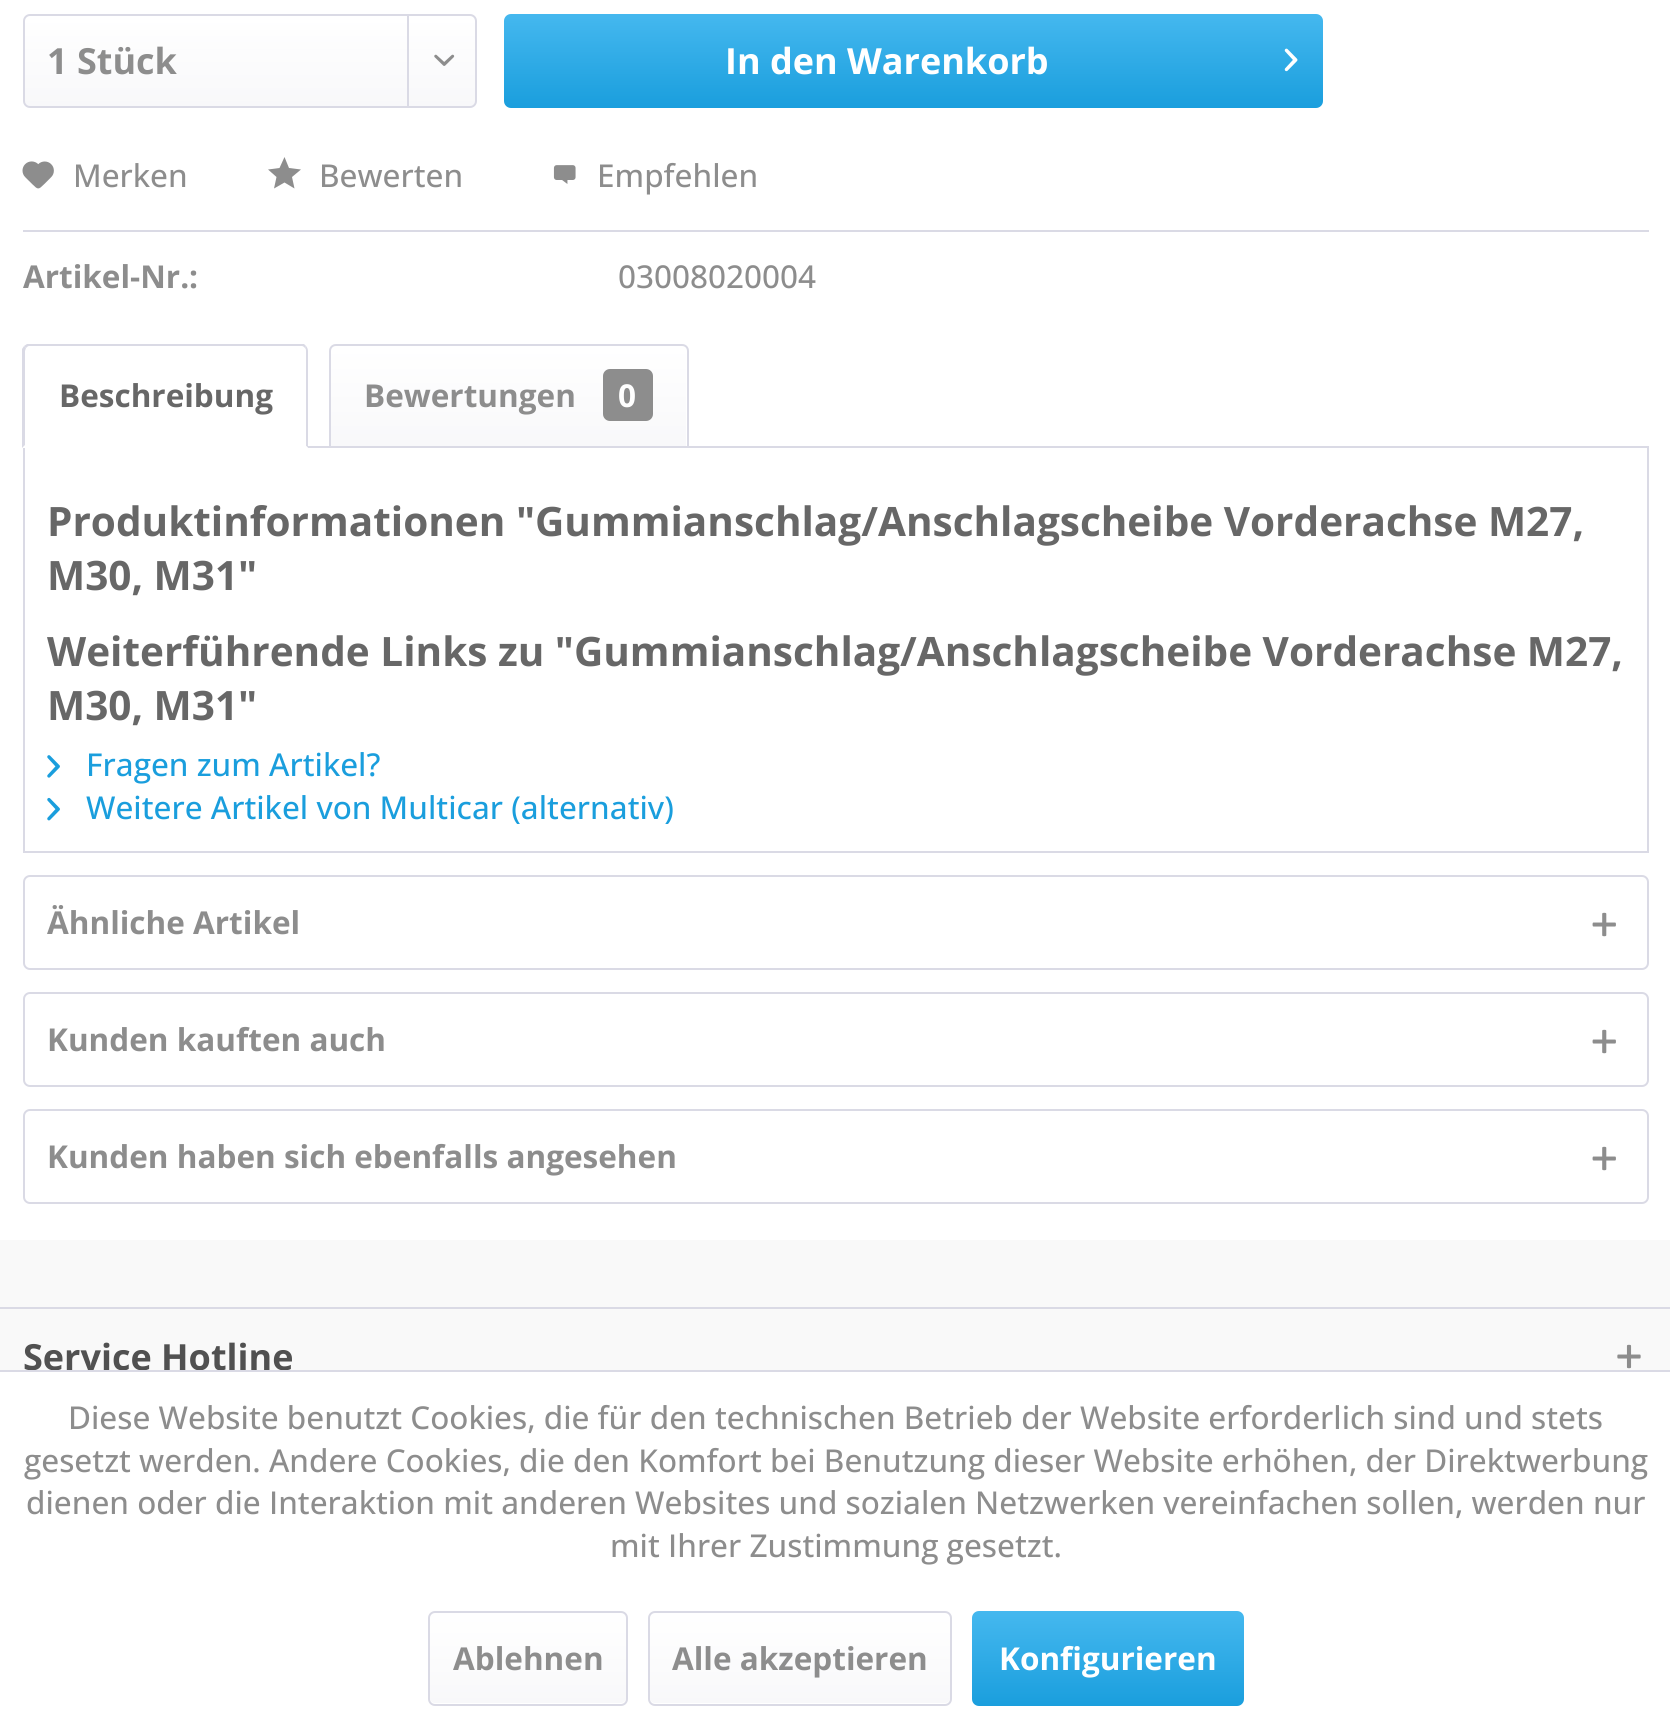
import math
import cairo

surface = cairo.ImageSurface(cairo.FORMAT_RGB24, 1670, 1726)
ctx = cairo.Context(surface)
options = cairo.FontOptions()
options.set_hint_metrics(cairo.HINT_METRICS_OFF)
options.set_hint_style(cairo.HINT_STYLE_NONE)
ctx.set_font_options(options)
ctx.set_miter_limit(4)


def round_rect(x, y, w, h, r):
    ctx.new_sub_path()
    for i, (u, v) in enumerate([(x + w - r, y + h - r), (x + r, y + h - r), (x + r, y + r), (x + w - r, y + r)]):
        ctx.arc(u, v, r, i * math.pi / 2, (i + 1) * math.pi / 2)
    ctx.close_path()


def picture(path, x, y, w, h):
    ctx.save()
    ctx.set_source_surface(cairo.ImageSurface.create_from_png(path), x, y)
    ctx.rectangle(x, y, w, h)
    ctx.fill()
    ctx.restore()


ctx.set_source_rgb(1, 1, 1)
ctx.paint()
gradient = cairo.LinearGradient(250, 16, 250, 106)
gradient.add_color_stop_rgba(0, 1, 1, 1, 1)
gradient.add_color_stop_rgba(1, 0.973, 0.973, 0.98, 1)
ctx.set_source(gradient)
round_rect(25, 16, 450, 90, 5)
ctx.fill()
round_rect(24, 15, 452, 92, 6)
ctx.set_source_rgb(0.855, 0.855, 0.898)
ctx.stroke()
ctx.select_font_face("Open Sans", cairo.FONT_SLANT_NORMAL, cairo.FONT_WEIGHT_BOLD)
ctx.set_font_size(36)
ctx.set_source_rgb(0.553, 0.553, 0.553)
ctx.move_to(47, 74)
ctx.show_text("1 Stück")
ctx.set_source_rgb(0.855, 0.855, 0.898)
ctx.rectangle(407, 16, 2, 90)
ctx.fill()
picture("img1.png", 434, 54, 21, 12)
gradient = cairo.LinearGradient(914, 13, 914, 108)
gradient.add_color_stop_rgba(0, 0.271, 0.722, 0.937, 1)
gradient.add_color_stop_rgba(1, 0.102, 0.62, 0.867, 1)
ctx.set_source(gradient)
round_rect(504, 14, 819, 94, 7)
ctx.fill()
ctx.set_source_rgb(1, 1, 1)
ctx.move_to(725, 74)
ctx.show_text("In den Warenkorb")
picture("img2.png", 1284, 48, 14, 24)
ctx.set_source_rgb(0.855, 0.855, 0.898)
ctx.rectangle(23, 230, 1626, 2)
ctx.fill()
picture("img3.png", 22, 161, 32, 28)
ctx.select_font_face("Open Sans Medium")
ctx.set_font_size(31.5)
ctx.set_source_rgb(0.553, 0.553, 0.553)
ctx.move_to(73, 187)
ctx.show_text("Merken")
ctx.move_to(319, 187)
ctx.show_text("Bewerten")
ctx.new_path()
ctx.move_to(284.5, 157)
ctx.line_to(279.5, 168)
ctx.line_to(268, 169.5)
ctx.line_to(276.5, 177)
ctx.line_to(274, 188.5)
ctx.line_to(284.5, 182.5)
ctx.line_to(294.5, 188.5)
ctx.line_to(292, 177)
ctx.line_to(301, 169.5)
ctx.line_to(289, 168)
ctx.close_path()
ctx.fill()
picture("img4.png", 553, 165, 23, 19)
ctx.move_to(597, 187)
ctx.show_text("Empfehlen")
ctx.select_font_face("Open Sans", cairo.FONT_SLANT_NORMAL, cairo.FONT_WEIGHT_BOLD)
ctx.move_to(23, 288)
ctx.show_text("Artikel-Nr.:")
ctx.select_font_face("Open Sans Medium")
ctx.move_to(618, 288)
ctx.show_text("03008020004")
ctx.rectangle(24, 447, 1624, 405)
ctx.set_source_rgb(0.855, 0.855, 0.898)
ctx.stroke()
ctx.set_source_rgb(1, 1, 1)
ctx.new_path()
ctx.move_to(30, 344)
ctx.line_to(301, 344)
ctx.curve_to(305, 344, 308, 347, 308, 351)
ctx.line_to(308, 448)
ctx.line_to(23, 448)
ctx.line_to(23, 351)
ctx.curve_to(23, 347, 26, 344, 30, 344)
ctx.close_path()
ctx.fill()
ctx.set_source_rgb(0.855, 0.855, 0.898)
ctx.new_path()
ctx.move_to(29, 346)
ctx.curve_to(28, 346, 27, 347, 26, 348)
ctx.line_to(24, 346)
ctx.line_to(27, 344)
ctx.line_to(304, 344)
ctx.line_to(306, 346)
ctx.line_to(305, 348)
ctx.curve_to(304, 347, 303, 346, 302, 346)
ctx.close_path()
ctx.fill()
ctx.new_path()
ctx.move_to(306, 346)
ctx.curve_to(307, 347, 308, 349, 308, 351)
ctx.line_to(308, 448)
ctx.line_to(306, 446)
ctx.line_to(306, 351)
ctx.curve_to(306, 350, 306, 349, 305, 348)
ctx.close_path()
ctx.fill()
ctx.set_source_rgb(1, 1, 1)
ctx.new_path()
ctx.move_to(308, 448)
ctx.line_to(22, 448)
ctx.line_to(25, 445)
ctx.line_to(25, 446)
ctx.line_to(306, 446)
ctx.close_path()
ctx.fill()
ctx.set_source_rgb(0.855, 0.855, 0.898)
ctx.new_path()
ctx.move_to(22, 448)
ctx.line_to(22, 349)
ctx.line_to(24, 346)
ctx.line_to(26, 348)
ctx.line_to(25, 351)
ctx.line_to(25, 445)
ctx.close_path()
ctx.fill()
ctx.select_font_face("Open Sans", cairo.FONT_SLANT_NORMAL, cairo.FONT_WEIGHT_BOLD)
ctx.set_source_rgb(0.404, 0.404, 0.404)
ctx.move_to(59, 407)
ctx.show_text("Beschreibung")
gradient = cairo.LinearGradient(509, 347, 509, 446)
gradient.add_color_stop_rgba(0, 1, 1, 1, 1)
gradient.add_color_stop_rgba(1, 0.973, 0.973, 0.98, 1)
ctx.set_source(gradient)
ctx.new_path()
ctx.move_to(336, 347)
ctx.line_to(681, 347)
ctx.curve_to(684, 347, 686, 349, 686, 352)
ctx.line_to(686, 446)
ctx.line_to(331, 446)
ctx.line_to(331, 352)
ctx.curve_to(331, 349, 333, 347, 336, 347)
ctx.close_path()
ctx.fill()
ctx.new_path()
ctx.move_to(336, 345)
ctx.line_to(682, 345)
ctx.curve_to(685.5, 345, 688, 347.5, 688, 351)
ctx.line_to(688, 447)
ctx.line_to(330, 447)
ctx.line_to(330, 351)
ctx.curve_to(330, 347.5, 332.5, 345, 336, 345)
ctx.close_path()
ctx.set_source_rgb(0.855, 0.855, 0.898)
ctx.stroke()
ctx.set_source_rgb(0.553, 0.553, 0.553)
ctx.move_to(364, 407)
ctx.show_text("Bewertungen")
round_rect(603, 369, 50, 52, 7)
ctx.fill()
ctx.set_source_rgb(1, 1, 1)
ctx.move_to(618, 407)
ctx.show_text("0")
ctx.set_font_size(40.5)
ctx.set_source_rgb(0.404, 0.404, 0.404)
ctx.move_to(47, 536)
ctx.show_text("Produktinformationen \"Gummianschlag/Anschlagscheibe Vorderachse M27,")
ctx.move_to(47, 590)
ctx.show_text("M30, M31\"")
ctx.move_to(47, 666)
ctx.show_text("Weiterführende Links zu \"Gummianschlag/Anschlagscheibe Vorderachse M27,")
ctx.move_to(47, 720)
ctx.show_text("M30, M31\"")
picture("img5.png", 47, 755, 13, 23)
ctx.select_font_face("Open Sans Medium")
ctx.set_font_size(31.5)
ctx.set_source_rgb(0.102, 0.62, 0.867)
ctx.move_to(86, 776)
ctx.show_text("Fragen zum Artikel?")
picture("img6.png", 47, 797, 13, 24)
ctx.move_to(86, 819)
ctx.show_text("Weitere Artikel von Multicar (alternativ)")
round_rect(24, 876, 1624, 93, 6)
ctx.set_source_rgb(0.855, 0.855, 0.898)
ctx.stroke()
ctx.select_font_face("Open Sans", cairo.FONT_SLANT_NORMAL, cairo.FONT_WEIGHT_BOLD)
ctx.set_source_rgb(0.553, 0.553, 0.553)
ctx.move_to(47, 934)
ctx.show_text("Ähnliche Artikel")
picture("img7.png", 1592, 912, 24, 25)
round_rect(24, 993, 1624, 93, 6)
ctx.set_source_rgb(0.855, 0.855, 0.898)
ctx.stroke()
ctx.set_source_rgb(0.553, 0.553, 0.553)
ctx.move_to(47, 1051)
ctx.show_text("Kunden kauften auch")
picture("img7.png", 1592, 1029, 24, 25)
round_rect(24, 1110, 1624, 93, 6)
ctx.set_source_rgb(0.855, 0.855, 0.898)
ctx.stroke()
ctx.set_source_rgb(0.553, 0.553, 0.553)
ctx.move_to(47, 1168)
ctx.show_text("Kunden haben sich ebenfalls angesehen")
picture("img7.png", 1592, 1146, 24, 25)
ctx.set_source_rgb(0.973, 0.973, 0.973)
ctx.rectangle(0, 1240, 1670, 130)
ctx.fill()
ctx.set_source_rgb(0.855, 0.855, 0.898)
ctx.rectangle(0, 1307, 1670, 2)
ctx.fill()
ctx.set_font_size(36)
ctx.set_source_rgb(0.318, 0.318, 0.318)
ctx.move_to(23, 1370)
ctx.show_text("Service Hotline")
picture("img8.png", 1617, 1344, 24, 25)
ctx.set_source_rgb(0.855, 0.855, 0.898)
ctx.rectangle(0, 1370, 1670, 2)
ctx.fill()
ctx.select_font_face("Open Sans Medium")
ctx.set_font_size(31.5)
ctx.set_source_rgb(0.553, 0.553, 0.553)
ctx.move_to(68, 1429)
ctx.show_text("Diese Website benutzt Cookies, die für den technischen Betrieb der Website erforderlich sind und stets")
ctx.move_to(24, 1472)
ctx.show_text("gesetzt werden. Andere Cookies, die den Komfort bei Benutzung dieser Website erhöhen, der Direktwerbung")
ctx.move_to(26, 1514)
ctx.show_text("dienen oder die Interaktion mit anderen Websites und sozialen Netzwerken vereinfachen sollen, werden nur")
ctx.move_to(610, 1557)
ctx.show_text("mit Ihrer Zustimmung gesetzt.")
gradient = cairo.LinearGradient(528, 1613, 528, 1703)
gradient.add_color_stop_rgba(0, 1, 1, 1, 1)
gradient.add_color_stop_rgba(1, 0.973, 0.973, 0.98, 1)
ctx.set_source(gradient)
round_rect(430, 1613, 196, 90, 5)
ctx.fill()
round_rect(429, 1612, 198, 93, 6)
ctx.set_source_rgb(0.855, 0.855, 0.898)
ctx.stroke()
ctx.select_font_face("Open Sans", cairo.FONT_SLANT_NORMAL, cairo.FONT_WEIGHT_BOLD)
ctx.set_source_rgb(0.553, 0.553, 0.553)
ctx.move_to(453, 1670)
ctx.show_text("Ablehnen")
gradient = cairo.LinearGradient(800, 1613, 800, 1703)
gradient.add_color_stop_rgba(0, 1, 1, 1, 1)
gradient.add_color_stop_rgba(1, 0.973, 0.973, 0.98, 1)
ctx.set_source(gradient)
round_rect(650, 1613, 300, 90, 5)
ctx.fill()
round_rect(649, 1612, 302, 93, 6)
ctx.set_source_rgb(0.855, 0.855, 0.898)
ctx.stroke()
ctx.set_source_rgb(0.553, 0.553, 0.553)
ctx.move_to(672, 1670)
ctx.show_text("Alle akzeptieren")
gradient = cairo.LinearGradient(1108, 1611, 1108, 1706)
gradient.add_color_stop_rgba(0, 0.271, 0.722, 0.937, 1)
gradient.add_color_stop_rgba(1, 0.102, 0.62, 0.867, 1)
ctx.set_source(gradient)
round_rect(972, 1611, 272, 95, 7)
ctx.fill()
ctx.set_source_rgb(1, 1, 1)
ctx.move_to(999, 1670)
ctx.show_text("Konfigurieren")
surface.write_to_png("page.png")
